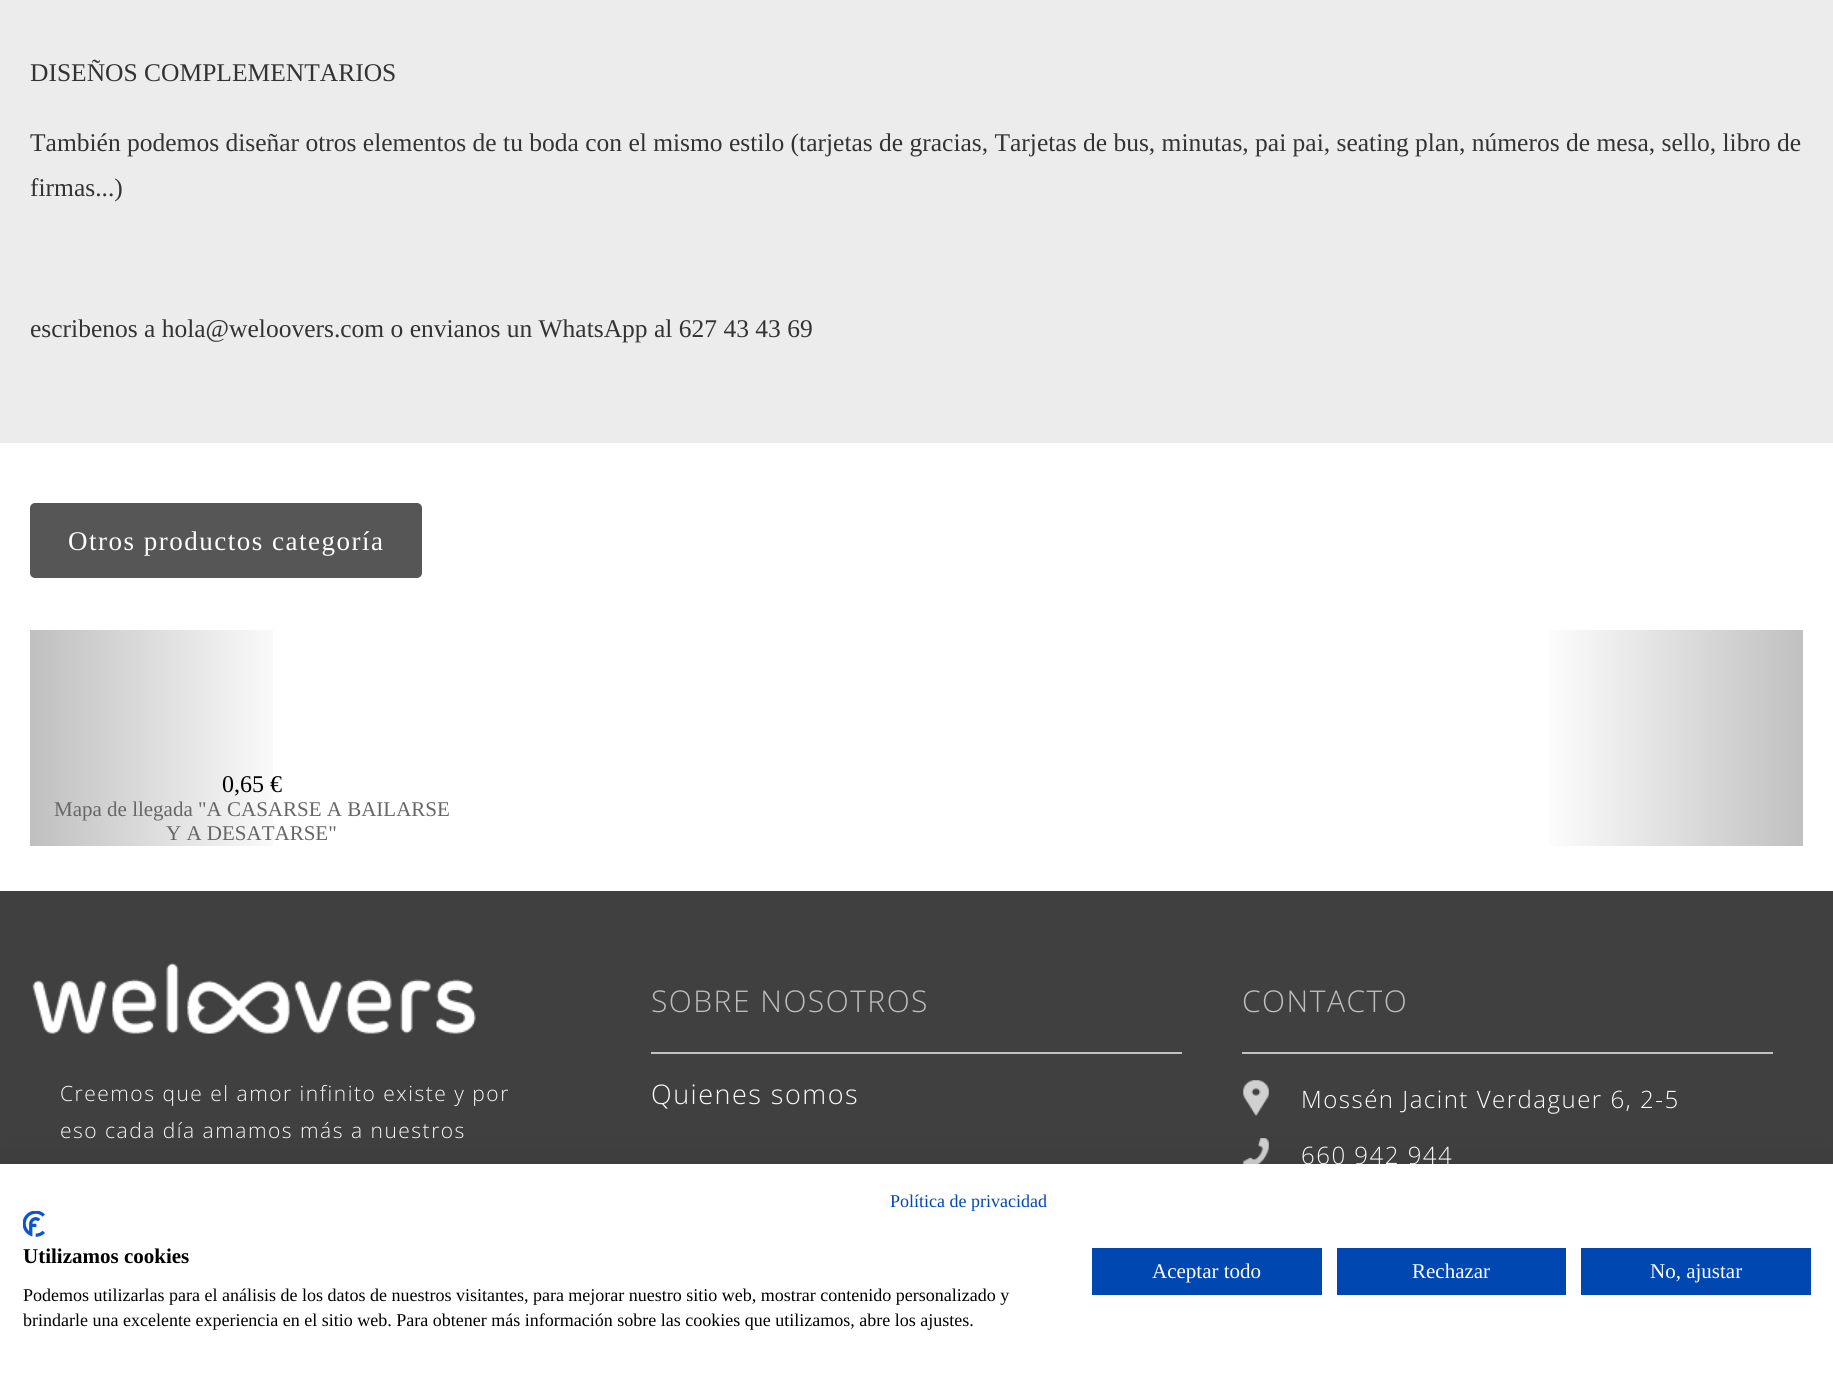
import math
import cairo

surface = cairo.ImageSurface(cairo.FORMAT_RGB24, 1833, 1374)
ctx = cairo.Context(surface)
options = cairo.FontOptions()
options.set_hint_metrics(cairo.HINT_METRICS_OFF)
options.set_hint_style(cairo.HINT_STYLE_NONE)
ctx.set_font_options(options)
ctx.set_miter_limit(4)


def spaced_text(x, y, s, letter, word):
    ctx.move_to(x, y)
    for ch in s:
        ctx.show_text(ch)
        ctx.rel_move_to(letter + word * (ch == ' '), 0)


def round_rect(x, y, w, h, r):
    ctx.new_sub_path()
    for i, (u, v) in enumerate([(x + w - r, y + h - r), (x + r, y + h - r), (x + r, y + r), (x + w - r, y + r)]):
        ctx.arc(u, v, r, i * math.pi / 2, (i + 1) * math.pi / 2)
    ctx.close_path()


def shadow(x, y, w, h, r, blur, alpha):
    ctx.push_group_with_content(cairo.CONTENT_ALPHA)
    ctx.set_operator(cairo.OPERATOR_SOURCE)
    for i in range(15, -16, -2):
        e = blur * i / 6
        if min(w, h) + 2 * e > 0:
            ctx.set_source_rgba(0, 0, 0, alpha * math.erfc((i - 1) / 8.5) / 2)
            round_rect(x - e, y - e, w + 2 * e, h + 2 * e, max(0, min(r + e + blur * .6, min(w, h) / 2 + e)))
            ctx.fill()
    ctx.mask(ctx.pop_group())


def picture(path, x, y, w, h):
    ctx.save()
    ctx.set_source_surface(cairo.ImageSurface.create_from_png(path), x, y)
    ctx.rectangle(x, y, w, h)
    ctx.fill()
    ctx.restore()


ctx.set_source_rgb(1, 1, 1)
ctx.paint()
ctx.set_source_rgb(0.925, 0.925, 0.925)
ctx.rectangle(0, 0, 1833, 443)
ctx.fill()
ctx.select_font_face("Liberation Serif")
ctx.set_font_size(25.5)
ctx.set_source_rgb(0.2, 0.2, 0.2)
ctx.move_to(30, 81)
ctx.show_text("DISEÑOS COMPLEMENTARIOS")
ctx.move_to(30, 151)
ctx.show_text("También podemos diseñar otros elementos de tu boda con el mismo estilo (tarjetas de gracias, Tarjetas de bus, minutas, pai pai, seating plan, números de mesa, sello, libro de")
ctx.move_to(30, 196)
ctx.show_text("firmas...)")
ctx.move_to(30, 337)
ctx.show_text("escribenos a hola@weloovers.com o envianos un WhatsApp al 627 43 43 69")
ctx.set_source_rgb(0.337, 0.337, 0.337)
round_rect(31, 504, 390, 73, 4)
ctx.fill_preserve()
ctx.stroke()
ctx.set_font_size(27)
ctx.set_source_rgb(1, 1, 1)
spaced_text(68, 550, "Otros productos categoría", 1.5, 0)
gradient = cairo.LinearGradient(30, 738, 296, 738)
gradient.add_color_stop_rgba(0, 0, 0, 0, 0.25)
gradient.add_color_stop_rgba(1, 0, 0, 0, 0)
ctx.set_source(gradient)
ctx.rectangle(30, 630, 243, 216)
ctx.fill()
gradient = cairo.LinearGradient(1538, 738, 1803, 738)
gradient.add_color_stop_rgba(0, 1, 1, 1, 1)
gradient.add_color_stop_rgba(1, 0.753, 0.753, 0.753, 1)
ctx.set_source(gradient)
ctx.rectangle(1549, 630, 254, 216)
ctx.fill()
ctx.set_font_size(24)
ctx.set_source_rgb(0, 0, 0)
ctx.move_to(222, 792)
ctx.show_text("0,65 €")
ctx.set_font_size(21)
ctx.set_source_rgb(0.4, 0.4, 0.4)
ctx.move_to(54, 816)
ctx.show_text("Mapa de llegada \"A CASARSE A BAILARSE")
ctx.move_to(166, 840)
ctx.show_text("Y A DESATARSE\"")
ctx.set_source_rgb(0.251, 0.251, 0.251)
ctx.rectangle(0, 891, 1833, 273)
ctx.fill()
picture("img1.png", 32, 962, 444, 72)
ctx.select_font_face("Open Sans Light")
ctx.set_source_rgb(0.976, 0.976, 0.976)
spaced_text(60, 1101, "Creemos que el amor infinito existe y por", 1.5, 0)
spaced_text(60, 1138, "eso cada día amamos más a nuestros", 1.5, 0)
ctx.set_font_size(30)
ctx.set_source_rgb(0.741, 0.741, 0.741)
spaced_text(651, 1012, "SOBRE NOSOTROS", 1.5, 0)
ctx.set_source_rgb(0.757, 0.757, 0.757)
ctx.rectangle(651, 1052, 531, 2)
ctx.fill()
ctx.set_font_size(27)
ctx.set_source_rgb(0.976, 0.976, 0.976)
spaced_text(651, 1104, "Quienes somos", 1.5, 0)
ctx.set_font_size(30)
ctx.set_source_rgb(0.741, 0.741, 0.741)
spaced_text(1242, 1012, "CONTACTO", 1.5, 0)
ctx.set_source_rgb(0.757, 0.757, 0.757)
ctx.rectangle(1242, 1052, 531, 2)
ctx.fill()
picture("img2.png", 1243, 1080, 26, 36)
ctx.set_font_size(24)
ctx.set_source_rgb(1, 1, 1)
spaced_text(1301, 1108, "Mossén Jacint Verdaguer 6, 2-5", 1.5, 0)
picture("img3.png", 1243, 1138, 26, 26)
spaced_text(1301, 1164, "660 942 944", 1.5, 0)
ctx.set_source_rgb(0, 0, 0)
shadow(0, 1164, 1833, 210, 0, 18, 0.1)
ctx.set_source_rgb(1, 1, 1)
ctx.rectangle(0, 1164, 1833, 210)
ctx.fill()
ctx.select_font_face("Liberation Serif")
ctx.set_font_size(18)
ctx.set_source_rgb(0, 0.278, 0.698)
ctx.move_to(890, 1207)
ctx.show_text("Política de privacidad")
picture("img4.png", 23, 1211, 22, 26)
ctx.select_font_face("Liberation Serif", cairo.FONT_SLANT_NORMAL, cairo.FONT_WEIGHT_BOLD)
ctx.set_font_size(21)
ctx.set_source_rgb(0, 0, 0)
ctx.move_to(23, 1263)
ctx.show_text("Utilizamos cookies")
ctx.select_font_face("Liberation Serif")
ctx.set_font_size(18)
ctx.move_to(23, 1301)
ctx.show_text("Podemos utilizarlas para el análisis de los datos de nuestros visitantes, para mejorar nuestro sitio web, mostrar contenido personalizado y")
ctx.move_to(23, 1326)
ctx.show_text("brindarle una excelente experiencia en el sitio web. Para obtener más información sobre las cookies que utilizamos, abre los ajustes.")
ctx.set_source_rgb(0, 0.278, 0.698)
ctx.rectangle(1092, 1248, 230, 47)
ctx.fill()
ctx.set_font_size(21)
ctx.set_source_rgb(1, 1, 1)
ctx.move_to(1152, 1278)
ctx.show_text("Aceptar todo")
ctx.set_source_rgb(0, 0.278, 0.698)
ctx.rectangle(1337, 1248, 229, 47)
ctx.fill()
ctx.set_source_rgb(1, 1, 1)
ctx.move_to(1412, 1278)
ctx.show_text("Rechazar")
ctx.set_source_rgb(0, 0.278, 0.698)
ctx.rectangle(1581, 1248, 230, 47)
ctx.fill()
ctx.set_source_rgb(1, 1, 1)
ctx.move_to(1650, 1278)
ctx.show_text("No, ajustar")
surface.write_to_png("page.png")
